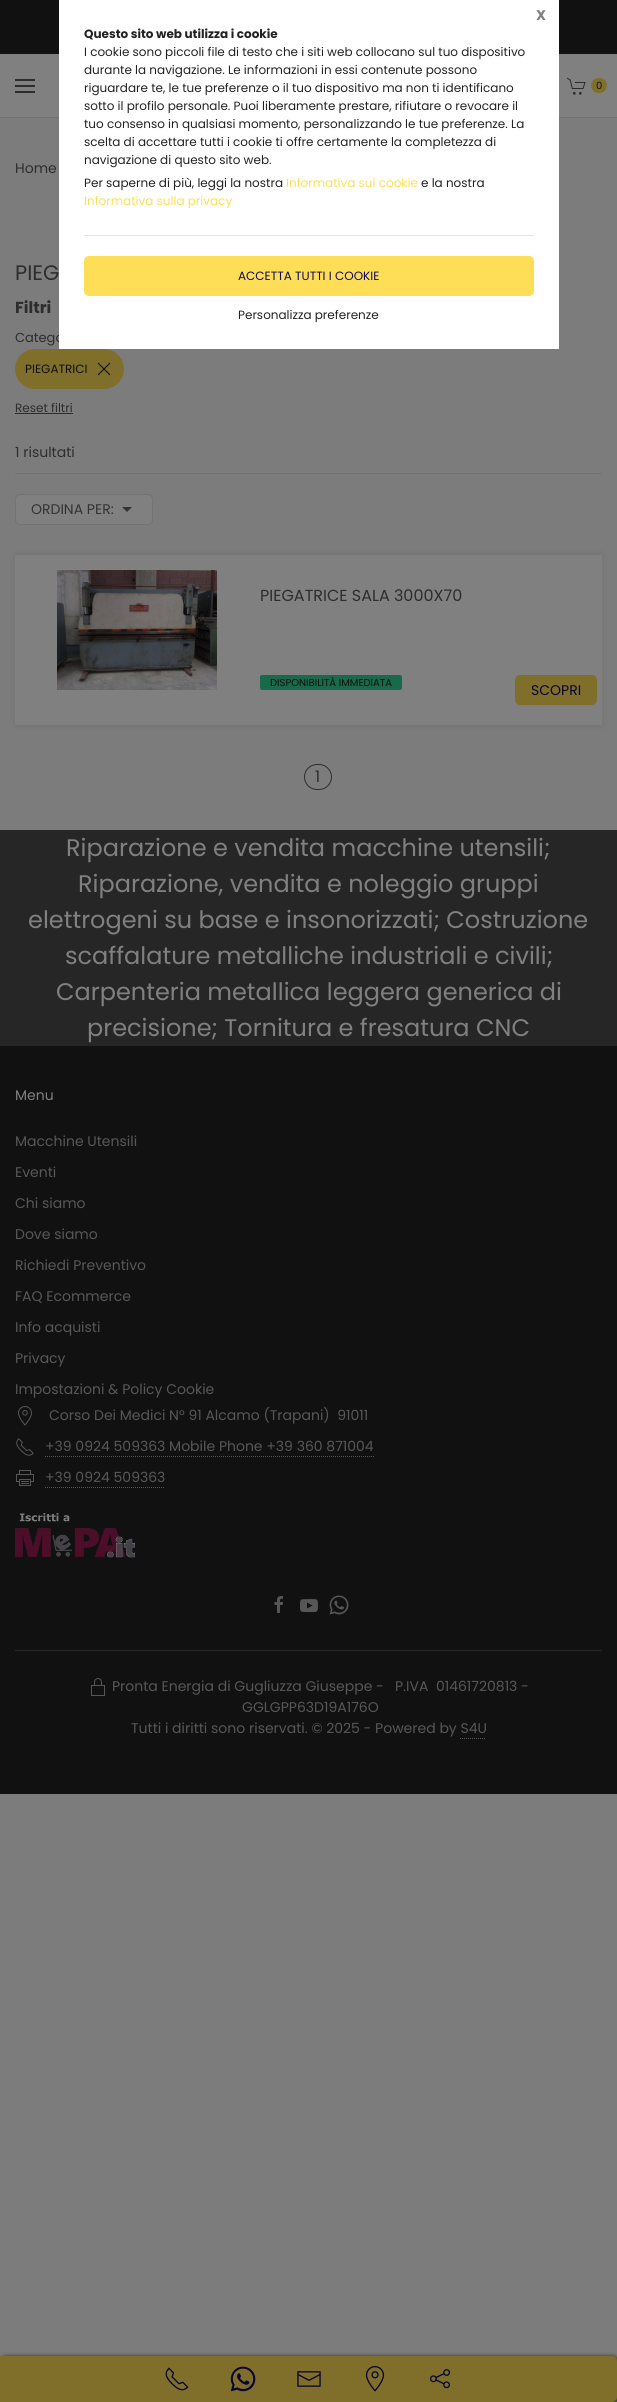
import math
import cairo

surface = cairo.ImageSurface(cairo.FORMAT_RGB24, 617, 2402)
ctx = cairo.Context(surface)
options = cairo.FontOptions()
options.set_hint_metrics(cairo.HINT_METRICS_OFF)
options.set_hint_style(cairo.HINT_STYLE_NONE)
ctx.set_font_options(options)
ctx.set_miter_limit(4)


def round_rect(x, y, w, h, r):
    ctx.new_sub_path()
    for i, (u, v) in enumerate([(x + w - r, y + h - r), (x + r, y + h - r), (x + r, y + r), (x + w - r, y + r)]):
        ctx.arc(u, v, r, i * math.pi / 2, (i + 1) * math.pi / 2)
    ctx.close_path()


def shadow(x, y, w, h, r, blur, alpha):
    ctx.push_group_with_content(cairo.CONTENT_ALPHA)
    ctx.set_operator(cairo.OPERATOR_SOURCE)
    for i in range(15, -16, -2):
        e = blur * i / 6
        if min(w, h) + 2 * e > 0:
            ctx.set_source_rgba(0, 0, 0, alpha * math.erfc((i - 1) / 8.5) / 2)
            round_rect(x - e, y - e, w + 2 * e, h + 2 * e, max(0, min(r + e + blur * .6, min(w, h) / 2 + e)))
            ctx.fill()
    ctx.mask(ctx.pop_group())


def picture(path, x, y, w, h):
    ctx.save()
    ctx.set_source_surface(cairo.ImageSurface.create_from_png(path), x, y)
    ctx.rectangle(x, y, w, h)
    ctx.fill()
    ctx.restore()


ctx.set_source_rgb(0.486, 0.486, 0.486)
ctx.paint()
ctx.set_source_rgb(0.502, 0.502, 0.502)
ctx.rectangle(0, 54, 617, 63)
ctx.fill()
ctx.set_source_rgb(0.451, 0.451, 0.451)
ctx.rectangle(0, 117, 617, 1)
ctx.fill()
ctx.set_source_rgb(0.067, 0.067, 0.067)
ctx.rectangle(0, 0, 617, 54)
ctx.fill()
ctx.select_font_face("Poppins")
ctx.set_font_size(13)
ctx.set_source_rgb(0.176, 0.176, 0.176)
ctx.move_to(15, 342)
ctx.show_text("Catego")
ctx.set_source_rgb(1, 1, 1)
ctx.rectangle(59, 0, 500, 349)
ctx.fill()
ctx.select_font_face("Poppins", cairo.FONT_SLANT_NORMAL, cairo.FONT_WEIGHT_BOLD)
ctx.set_font_size(14)
ctx.set_source_rgb(0.502, 0.502, 0.502)
ctx.move_to(536, 20)
ctx.show_text("X")
ctx.set_font_size(12)
ctx.set_source_rgb(0.133, 0.133, 0.133)
ctx.move_to(84, 38)
ctx.show_text("Questo sito web utilizza i cookie")
ctx.select_font_face("Poppins")
ctx.move_to(84, 56)
ctx.show_text("I cookie sono piccoli file di testo che i siti web collocano sul tuo dispositivo")
ctx.move_to(84, 74)
ctx.show_text("durante la navigazione. Le informazioni in essi contenute possono")
ctx.move_to(84, 92)
ctx.show_text("riguardare te, le tue preferenze o il tuo dispositivo ma non ti identificano")
ctx.move_to(84, 110)
ctx.show_text("sotto il profilo personale. Puoi liberamente prestare, rifiutare o revocare il")
ctx.move_to(84, 128)
ctx.show_text("tuo consenso in qualsiasi momento, personalizzando le tue preferenze. La")
ctx.move_to(84, 146)
ctx.show_text("scelta di accettare tutti i cookie ti offre certamente la completezza di")
ctx.move_to(84, 164)
ctx.show_text("navigazione di questo sito web.")
ctx.move_to(84, 187)
ctx.show_text("Per saperne di più, leggi la nostra")
ctx.set_source_rgb(0.996, 0.871, 0.337)
ctx.move_to(286, 187)
ctx.show_text("Informativa sui cookie")
ctx.set_source_rgb(0.133, 0.133, 0.133)
ctx.move_to(421, 187)
ctx.show_text("e la nostra")
ctx.set_source_rgb(0.996, 0.871, 0.337)
ctx.move_to(84, 205)
ctx.show_text("Informativa sulla privacy")
ctx.set_source_rgb(0.898, 0.898, 0.898)
ctx.rectangle(84, 235, 450, 1)
ctx.fill()
ctx.set_source_rgb(0.996, 0.871, 0.337)
round_rect(84, 256, 450, 40, 5)
ctx.fill()
ctx.set_source_rgb(0.063, 0.039, 0.373)
ctx.move_to(238, 280)
ctx.show_text("ACCETTA TUTTI I COOKIE")
ctx.set_source_rgb(0.133, 0.133, 0.133)
ctx.move_to(238, 319)
ctx.show_text("Personalizza preferenze")
ctx.set_source_rgb(0.176, 0.176, 0.176)
ctx.rectangle(15, 79, 20, 2)
ctx.fill()
ctx.rectangle(15, 85, 20, 2)
ctx.fill()
ctx.rectangle(15, 91, 20, 2)
ctx.fill()
picture("img1.png", 567, 77, 19, 18)
ctx.set_source_rgb(0.498, 0.435, 0.169)
round_rect(591, 78, 16, 15, 7.5)
ctx.fill()
ctx.set_font_size(10)
ctx.set_source_rgb(0.067, 0.067, 0.067)
ctx.move_to(596, 89)
ctx.show_text("0")
ctx.set_font_size(14)
ctx.set_source_rgb(0.176, 0.176, 0.176)
ctx.move_to(15, 173)
ctx.show_text("Home")
ctx.set_font_size(21)
ctx.move_to(15, 280)
ctx.show_text("PIEG")
ctx.select_font_face("Poppins", cairo.FONT_SLANT_NORMAL, cairo.FONT_WEIGHT_BOLD)
ctx.set_font_size(16)
ctx.move_to(15, 313)
ctx.show_text("Filtri")
ctx.set_source_rgb(0.498, 0.435, 0.169)
round_rect(15, 349, 109, 40, 20)
ctx.fill()
ctx.select_font_face("Poppins")
ctx.set_font_size(12)
ctx.set_source_rgb(0.067, 0.067, 0.067)
ctx.move_to(25, 373)
ctx.show_text("PIEGATRICI")
ctx.new_path()
ctx.move_to(110, 375)
ctx.line_to(98, 363)
ctx.move_to(110, 363)
ctx.line_to(98, 375)
ctx.set_line_width(1.1)
ctx.stroke()
ctx.set_source_rgb(0.176, 0.176, 0.176)
ctx.move_to(15, 412)
ctx.show_text("Reset filtri")
ctx.rectangle(15, 413, 58, 1)
ctx.fill()
ctx.set_font_size(14)
ctx.move_to(15, 457)
ctx.show_text("1 risultati")
ctx.set_source_rgb(0.451, 0.451, 0.451)
ctx.rectangle(15, 473, 587, 1)
ctx.fill()
ctx.set_source_rgb(0.502, 0.502, 0.502)
round_rect(15.5, 494.5, 137, 30, 4.5)
ctx.fill_preserve()
ctx.set_source_rgb(0.451, 0.451, 0.451)
ctx.set_line_width(1)
ctx.stroke()
ctx.set_source_rgb(0.2, 0.2, 0.2)
ctx.move_to(31, 514)
ctx.show_text("ORDINA PER:")
ctx.new_path()
ctx.move_to(122, 507)
ctx.line_to(132, 507)
ctx.line_to(127, 512)
ctx.close_path()
ctx.fill()
ctx.set_source_rgb(0, 0, 0)
shadow(15, 555, 587, 170, 0, 4, 0.1)
ctx.set_source_rgb(0.502, 0.502, 0.502)
ctx.rectangle(15, 555, 587, 170)
ctx.fill()
picture("img2.png", 57, 570, 160, 120)
ctx.set_font_size(16)
ctx.set_source_rgb(0.176, 0.176, 0.176)
ctx.move_to(260, 601)
ctx.show_text("PIEGATRICE SALA 3000X70")
ctx.set_source_rgb(0.098, 0.412, 0.294)
round_rect(260, 675, 142, 15, 2)
ctx.fill()
ctx.set_font_size(10)
ctx.set_source_rgb(0.067, 0.067, 0.067)
ctx.move_to(270, 686)
ctx.show_text("DISPONIBILITÀ IMMEDIATA")
ctx.set_source_rgb(0.498, 0.435, 0.169)
round_rect(515, 675, 82, 30, 5)
ctx.fill()
ctx.set_font_size(14)
ctx.set_source_rgb(0.031, 0.02, 0.188)
ctx.move_to(531, 695)
ctx.show_text("SCOPRI")
round_rect(304.5, 764.5, 27, 25, 12.5)
ctx.set_source_rgb(0.176, 0.176, 0.176)
ctx.stroke()
ctx.set_font_size(16)
ctx.move_to(315, 782)
ctx.show_text("1")
ctx.set_source_rgb(0.149, 0.149, 0.149)
ctx.rectangle(0, 830, 617, 216)
ctx.fill()
ctx.set_font_size(24)
ctx.set_source_rgb(0.502, 0.502, 0.502)
ctx.move_to(66, 856)
ctx.show_text("Riparazione e vendita macchine utensili;")
ctx.move_to(78, 892)
ctx.show_text("Riparazione, vendita e noleggio gruppi")
ctx.move_to(28, 928)
ctx.show_text("elettrogeni su base e insonorizzati; Costruzione")
ctx.move_to(65, 964)
ctx.show_text("scaffalature metalliche industriali e civili;")
ctx.move_to(56, 1000)
ctx.show_text("Carpenteria metallica leggera generica di")
ctx.move_to(87, 1036)
ctx.show_text("precisione; Tornitura e fresatura CNC")
ctx.set_source_rgb(0.067, 0.067, 0.067)
ctx.rectangle(0, 1046, 617, 748)
ctx.fill()
ctx.set_font_size(14)
ctx.set_source_rgb(0.502, 0.502, 0.502)
ctx.move_to(15, 1100)
ctx.show_text("Menu")
ctx.set_source_rgb(0.341, 0.341, 0.341)
ctx.move_to(15, 1146)
ctx.show_text("Macchine Utensili")
ctx.move_to(15, 1177)
ctx.show_text("Eventi")
ctx.move_to(15, 1208)
ctx.show_text("Chi siamo")
ctx.move_to(15, 1239)
ctx.show_text("Dove siamo")
ctx.move_to(15, 1270)
ctx.show_text("Richiedi Preventivo")
ctx.move_to(15, 1301)
ctx.show_text("FAQ Ecommerce")
ctx.move_to(15, 1332)
ctx.show_text("Info acquisti")
ctx.move_to(15, 1363)
ctx.show_text("Privacy")
ctx.move_to(15, 1394)
ctx.show_text("Impostazioni & Policy Cookie")
picture("img3.png", 18, 1406, 14, 20)
ctx.move_to(49, 1420)
ctx.show_text("Corso Dei Medici N° 91 Alcamo (Trapani)  91011")
picture("img4.png", 16, 1438, 18, 18)
ctx.move_to(45, 1451)
ctx.show_text("+39 0924 509363 Mobile Phone +39 360 871004")
ctx.new_path()
ctx.move_to(45, 1456.5)
ctx.line_to(374, 1456.5)
ctx.set_dash([1, 1])
ctx.stroke()
picture("img5.png", 16, 1470, 18, 16)
ctx.move_to(45, 1482)
ctx.show_text("+39 0924 509363")
ctx.new_path()
ctx.move_to(45, 1487.5)
ctx.line_to(165, 1487.5)
ctx.stroke()
picture("img6.png", 15, 1513, 120, 45)
picture("img7.png", 274, 1596, 9, 17)
picture("img8.png", 300, 1599, 18, 14)
picture("img9.png", 329, 1595, 20, 20)
ctx.set_source_rgb(0.153, 0.153, 0.153)
ctx.rectangle(15, 1650, 587, 1)
ctx.fill()
picture("img10.png", 91, 1678, 14, 18)
ctx.set_source_rgb(0.341, 0.341, 0.341)
ctx.move_to(112, 1691)
ctx.show_text("Pronta Energia di Gugliuzza Giuseppe -   P.IVA  01461720813 -")
ctx.move_to(242, 1712)
ctx.show_text("GGLGPP63D19A176O")
ctx.move_to(131, 1733)
ctx.show_text("Tutti i diritti sono riservati. © 2025 - Powered by S4U")
ctx.new_path()
ctx.move_to(460, 1738.5)
ctx.line_to(486, 1738.5)
ctx.stroke()
ctx.set_source_rgb(0.067, 0.067, 0.067)
shadow(1, 2357, 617, 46, 5, 2.5, 1)
ctx.set_source_rgb(0.498, 0.435, 0.169)
ctx.new_path()
ctx.move_to(0, 2356)
ctx.line_to(612, 2356)
ctx.curve_to(615, 2356, 617, 2358, 617, 2361)
ctx.line_to(617, 2397)
ctx.curve_to(617, 2400, 615, 2402, 612, 2402)
ctx.line_to(0, 2402)
ctx.close_path()
ctx.fill()
picture("img11.png", 165, 2367, 24, 24)
picture("img12.png", 230, 2366, 26, 26)
picture("img13.png", 297, 2371, 24, 16)
picture("img14.png", 365, 2366, 20, 26)
picture("img15.png", 430, 2369, 20, 20)
surface.write_to_png("page.png")
